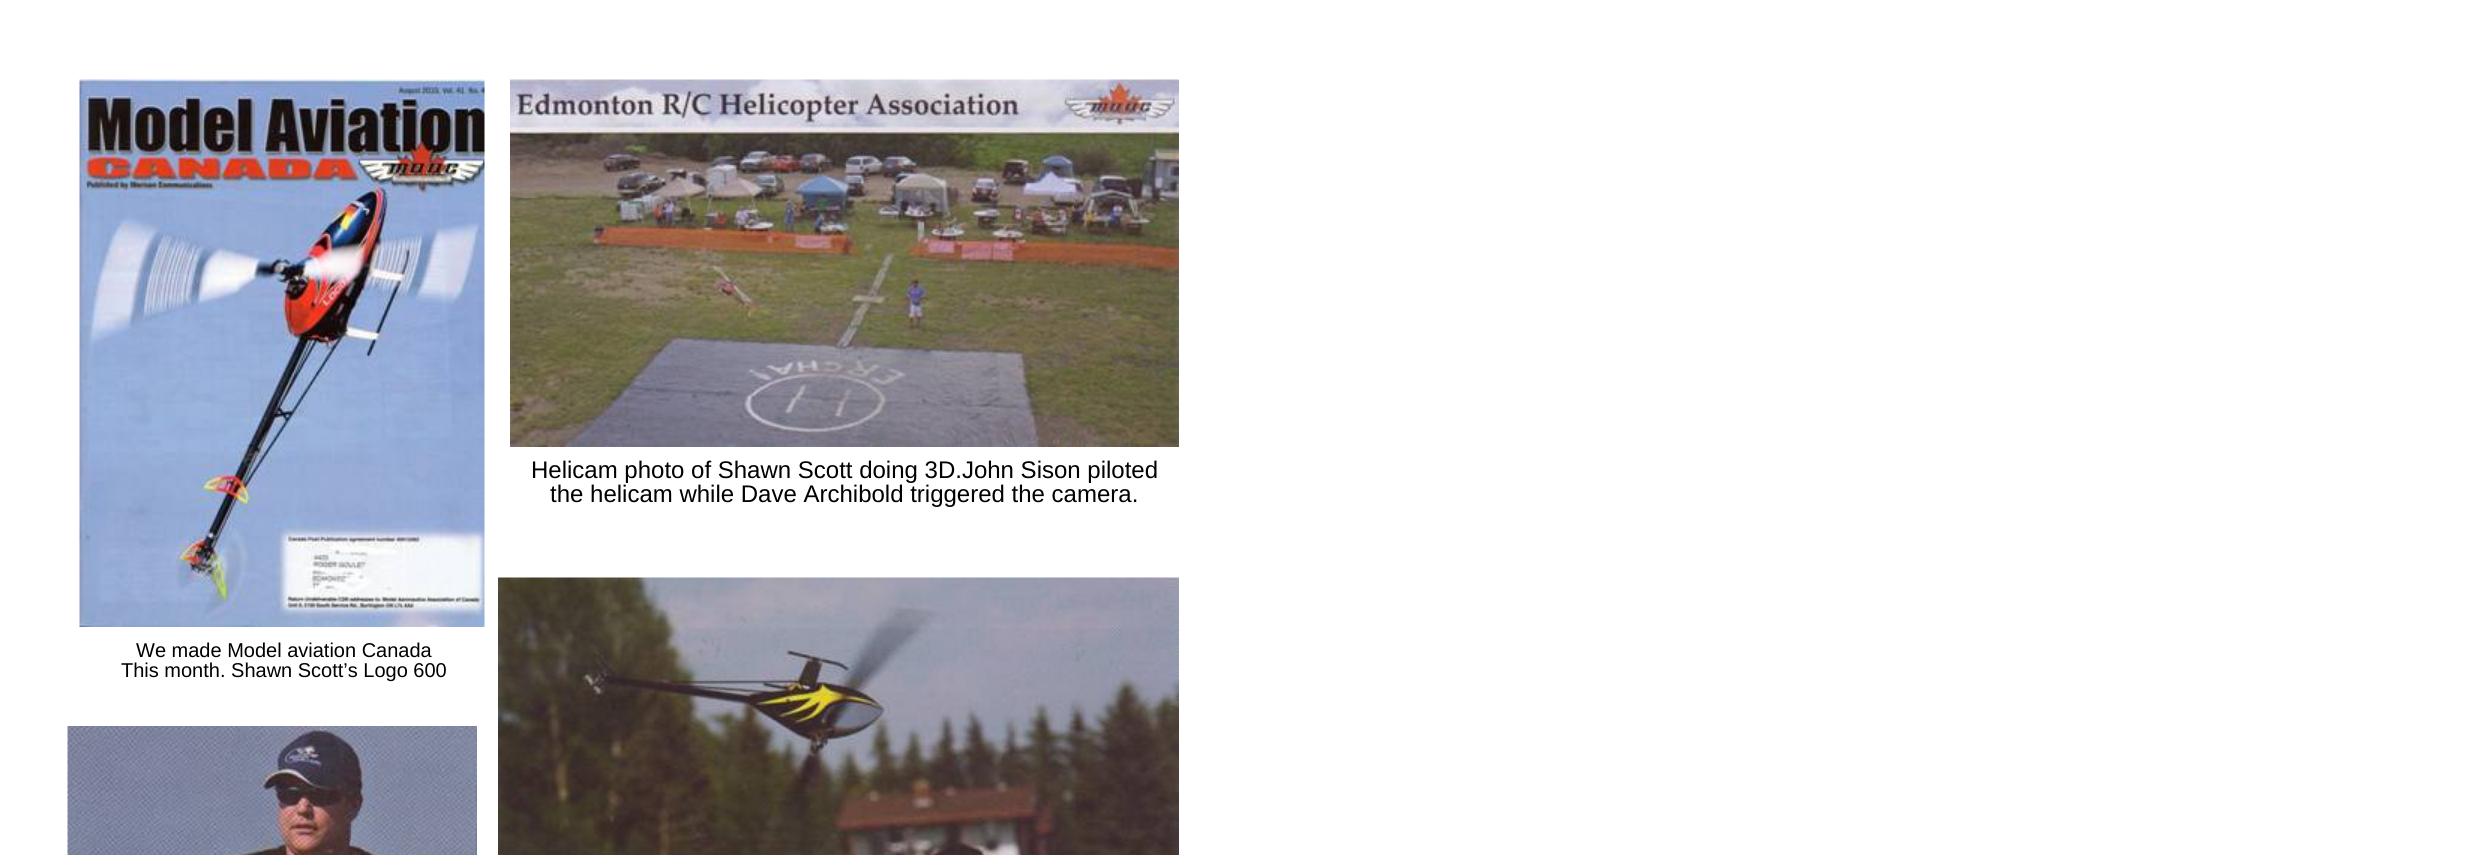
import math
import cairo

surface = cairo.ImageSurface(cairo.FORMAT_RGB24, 2473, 855)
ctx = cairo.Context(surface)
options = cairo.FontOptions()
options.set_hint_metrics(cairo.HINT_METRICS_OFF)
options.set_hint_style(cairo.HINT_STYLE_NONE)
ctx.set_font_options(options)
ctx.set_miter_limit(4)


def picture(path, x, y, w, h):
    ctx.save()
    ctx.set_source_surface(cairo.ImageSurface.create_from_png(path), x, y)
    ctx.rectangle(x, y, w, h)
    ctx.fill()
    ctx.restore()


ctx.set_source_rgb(1, 1, 1)
ctx.paint()
picture("img1.png", 79, 79, 406, 548)
picture("img2.png", 510, 79, 669, 368)
ctx.select_font_face("Liberation Sans")
ctx.set_font_size(24)
ctx.set_source_rgb(0, 0, 0)
ctx.move_to(531, 478)
ctx.show_text("Helicam photo of Shawn Scott doing 3D.John Sison piloted")
ctx.move_to(550, 502)
ctx.show_text("the helicam while Dave Archibold triggered the camera.")
ctx.set_font_size(20)
ctx.move_to(136, 657)
ctx.show_text("We made Model aviation Canada")
ctx.move_to(121, 677)
ctx.show_text("This month. Shawn Scott’s Logo 600")
picture("img3.png", 498, 577, 681, 278)
picture("img4.png", 67, 726, 410, 129)
surface.write_to_png("page.png")
